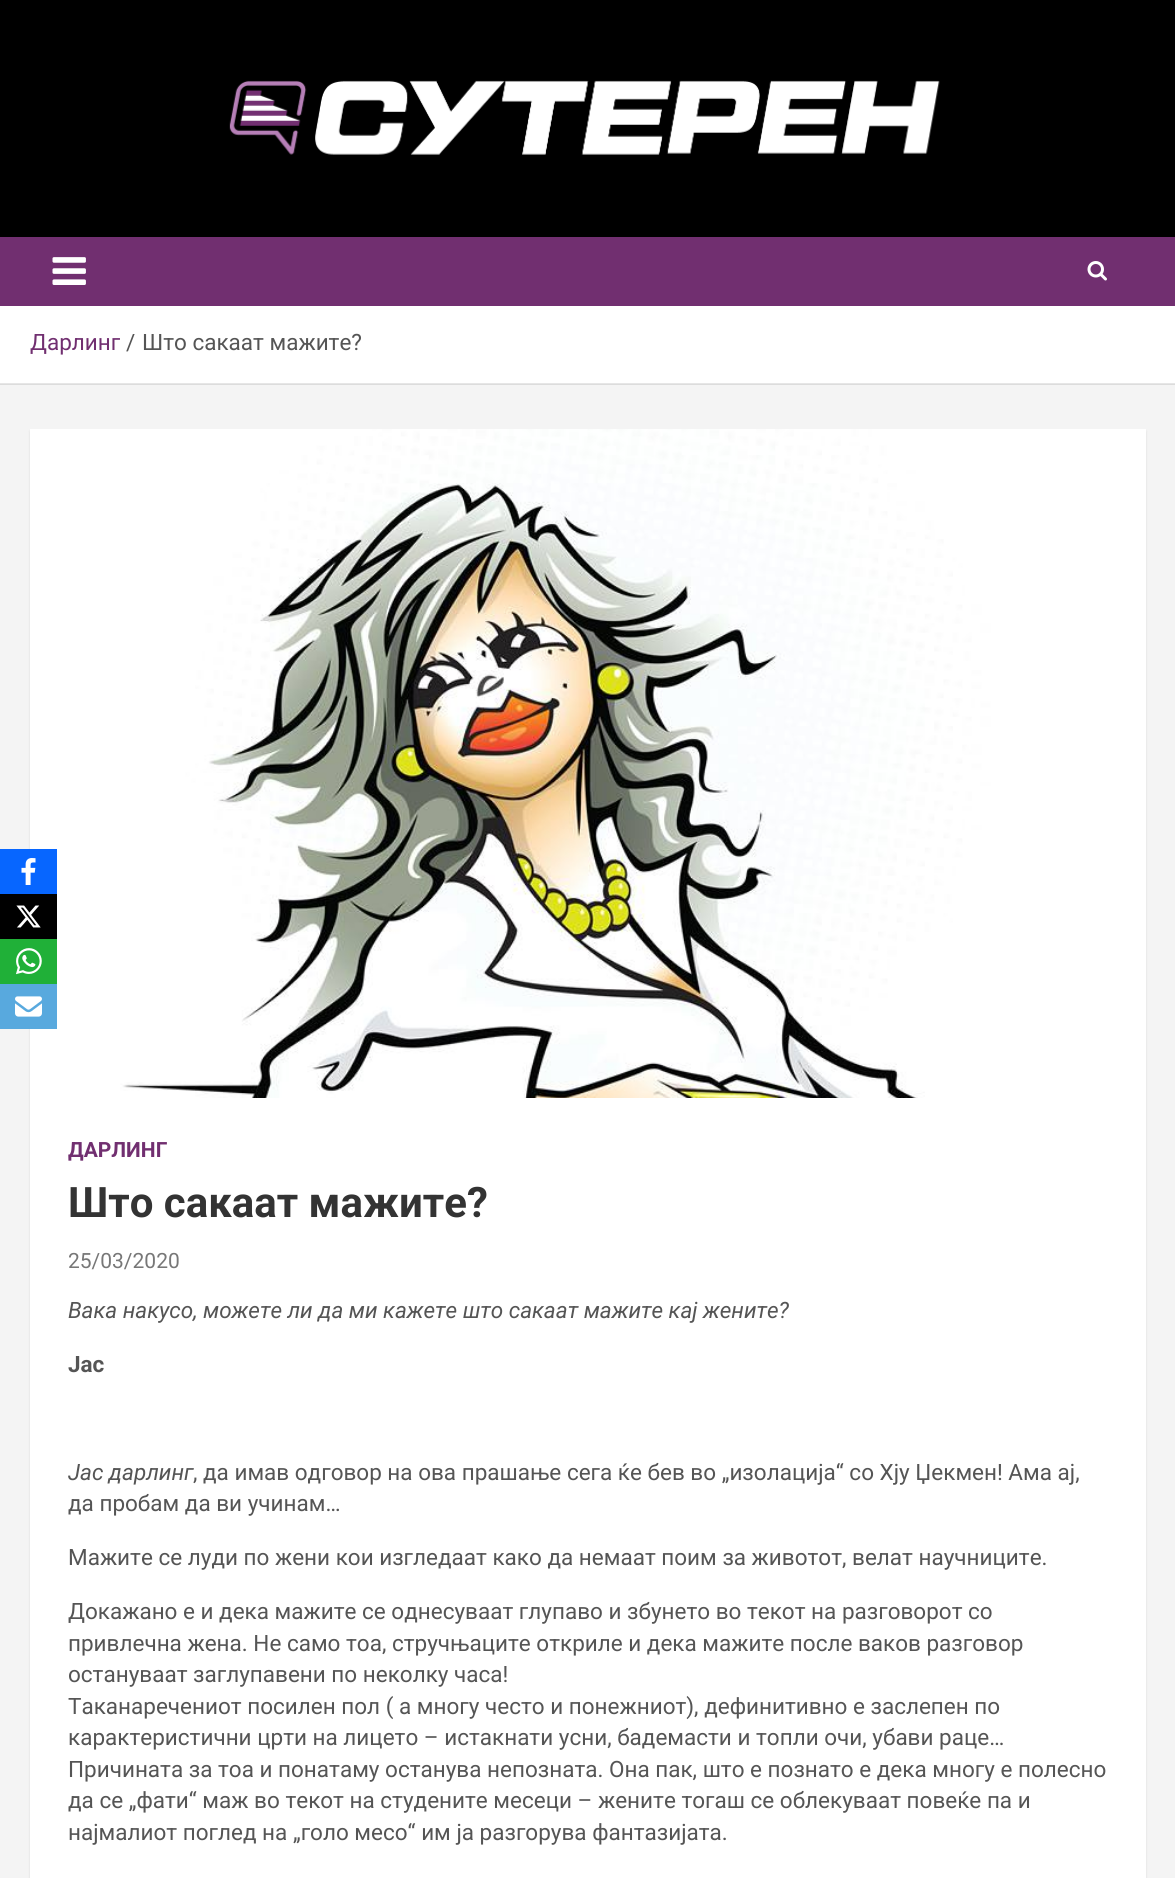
import math
import cairo

surface = cairo.ImageSurface(cairo.FORMAT_RGB24, 1175, 1878)
ctx = cairo.Context(surface)
options = cairo.FontOptions()
options.set_hint_metrics(cairo.HINT_METRICS_OFF)
options.set_hint_style(cairo.HINT_STYLE_NONE)
ctx.set_font_options(options)
ctx.set_miter_limit(4)


def round_rect(x, y, w, h, r):
    ctx.new_sub_path()
    for i, (u, v) in enumerate([(x + w - r, y + h - r), (x + r, y + h - r), (x + r, y + r), (x + w - r, y + r)]):
        ctx.arc(u, v, r, i * math.pi / 2, (i + 1) * math.pi / 2)
    ctx.close_path()


def shadow(x, y, w, h, r, blur, alpha):
    ctx.push_group_with_content(cairo.CONTENT_ALPHA)
    ctx.set_operator(cairo.OPERATOR_SOURCE)
    for i in range(15, -16, -2):
        e = blur * i / 6
        if min(w, h) + 2 * e > 0:
            ctx.set_source_rgba(0, 0, 0, alpha * math.erfc((i - 1) / 8.5) / 2)
            round_rect(x - e, y - e, w + 2 * e, h + 2 * e, max(0, min(r + e + blur * .6, min(w, h) / 2 + e)))
            ctx.fill()
    ctx.mask(ctx.pop_group())


def picture(path, x, y, w, h):
    ctx.save()
    ctx.set_source_surface(cairo.ImageSurface.create_from_png(path), x, y)
    ctx.rectangle(x, y, w, h)
    ctx.fill()
    ctx.restore()


ctx.set_source_rgb(0.957, 0.957, 0.957)
ctx.paint()
ctx.set_source_rgb(0.863, 0.863, 0.863)
ctx.rectangle(0, 384, 1175, 1)
ctx.fill()
ctx.set_source_rgb(0, 0, 0)
shadow(30, 431, 1116, 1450, 0, 1, 0.1)
picture("img8.png", 30, 429, 1116, 669)
ctx.set_source_rgb(0.031, 0.4, 1)
ctx.rectangle(0, 849, 57, 45)
ctx.fill()
picture("img1.png", 21, 858, 15, 27)
ctx.set_source_rgb(0, 0, 0)
ctx.rectangle(0, 894, 57, 45)
ctx.fill()
picture("img2.png", 16, 905, 25, 23)
ctx.set_source_rgb(0.125, 0.69, 0.22)
ctx.rectangle(0, 939, 57, 45)
ctx.fill()
picture("img3.png", 16, 948, 26, 27)
ctx.set_source_rgb(0.345, 0.663, 0.871)
ctx.rectangle(0, 984, 57, 45)
ctx.fill()
picture("img4.png", 15, 996, 27, 21)
ctx.set_source_rgb(0, 0, 0)
ctx.rectangle(0, 0, 1175, 237)
ctx.fill()
picture("img5.png", 229, 80, 711, 75)
ctx.set_source_rgb(0.443, 0.184, 0.439)
ctx.rectangle(0, 237, 1175, 69)
ctx.fill()
picture("img6.png", 52, 257, 34, 28)
picture("img7.png", 1087, 261, 20, 20)
ctx.set_source_rgb(1, 1, 1)
ctx.rectangle(0, 306, 1175, 77)
ctx.fill()
ctx.set_source_rgb(0.902, 0.902, 0.902)
ctx.rectangle(0, 383, 1175, 1)
ctx.fill()
ctx.select_font_face("Roboto")
ctx.set_font_size(22.5)
ctx.set_source_rgb(0.443, 0.184, 0.439)
ctx.move_to(30, 350)
ctx.show_text("Дарлинг")
ctx.set_source_rgb(0.333, 0.333, 0.333)
ctx.move_to(126, 350)
ctx.show_text("/")
ctx.move_to(142, 350)
ctx.show_text("Што сакаат мажите?")
ctx.set_source_rgb(1, 1, 1)
ctx.rectangle(30, 1098, 1116, 780)
ctx.fill()
ctx.select_font_face("Roboto", cairo.FONT_SLANT_NORMAL, cairo.FONT_WEIGHT_BOLD)
ctx.set_font_size(21)
ctx.set_source_rgb(0.443, 0.184, 0.439)
ctx.move_to(68, 1157)
ctx.show_text("ДАРЛИНГ")
ctx.set_font_size(42)
ctx.set_source_rgb(0.2, 0.2, 0.2)
ctx.move_to(68, 1217)
ctx.show_text("Што сакаат мажите?")
ctx.select_font_face("Roboto")
ctx.set_font_size(21)
ctx.set_source_rgb(0.467, 0.467, 0.467)
ctx.move_to(68, 1268)
ctx.show_text("25/03/2020")
ctx.select_font_face("Roboto", cairo.FONT_SLANT_ITALIC)
ctx.set_font_size(22.5)
ctx.set_source_rgb(0.333, 0.333, 0.333)
ctx.move_to(68, 1318)
ctx.show_text("Вака накусо, можете ли да ми кажете што сакаат мажите кај жените?")
ctx.select_font_face("Roboto", cairo.FONT_SLANT_NORMAL, cairo.FONT_WEIGHT_BOLD)
ctx.move_to(68, 1372)
ctx.show_text("Јас")
ctx.select_font_face("Roboto", cairo.FONT_SLANT_ITALIC)
ctx.move_to(68, 1480)
ctx.show_text("Јас дарлинг")
ctx.select_font_face("Roboto")
ctx.move_to(193, 1480)
ctx.show_text(", да имав одговор на ова прашање сега ќе бев во „изолација“ со Хју Џекмен! Ама ај,")
ctx.move_to(68, 1511)
ctx.show_text("да пробам да ви учинам…")
ctx.move_to(68, 1565)
ctx.show_text("Мажите се луди по жени кои изгледаат како да немаат поим за животот, велат научниците.")
ctx.move_to(68, 1619)
ctx.show_text("Докажано е и дека мажите се однесуваат глупаво и збунето во текот на разговорот со")
ctx.move_to(68, 1651)
ctx.show_text("привлечна жена. Не само тоа, стручњаците откриле и дека мажите после ваков разговор")
ctx.move_to(68, 1682)
ctx.show_text("остануваат заглупавени по неколку часа!")
ctx.move_to(68, 1714)
ctx.show_text("Таканаречениот посилен пол ( а многу често и понежниот), дефинитивно е заслепен по")
ctx.move_to(68, 1745)
ctx.show_text("карактеристични црти на лицето – истакнати усни, бадемасти и топли очи, убави раце…")
ctx.move_to(68, 1777)
ctx.show_text("Причината за тоа и понатаму останува непозната. Она пак, што е познато е дека многу е полесно")
ctx.move_to(68, 1808)
ctx.show_text("да се „фати“ маж во текот на студените месеци – жените тогаш се облекуваат повеќе па и")
ctx.move_to(68, 1840)
ctx.show_text("најмалиот поглед на „голо месо“ им ја разгорува фантазијата.")
surface.write_to_png("page.png")
